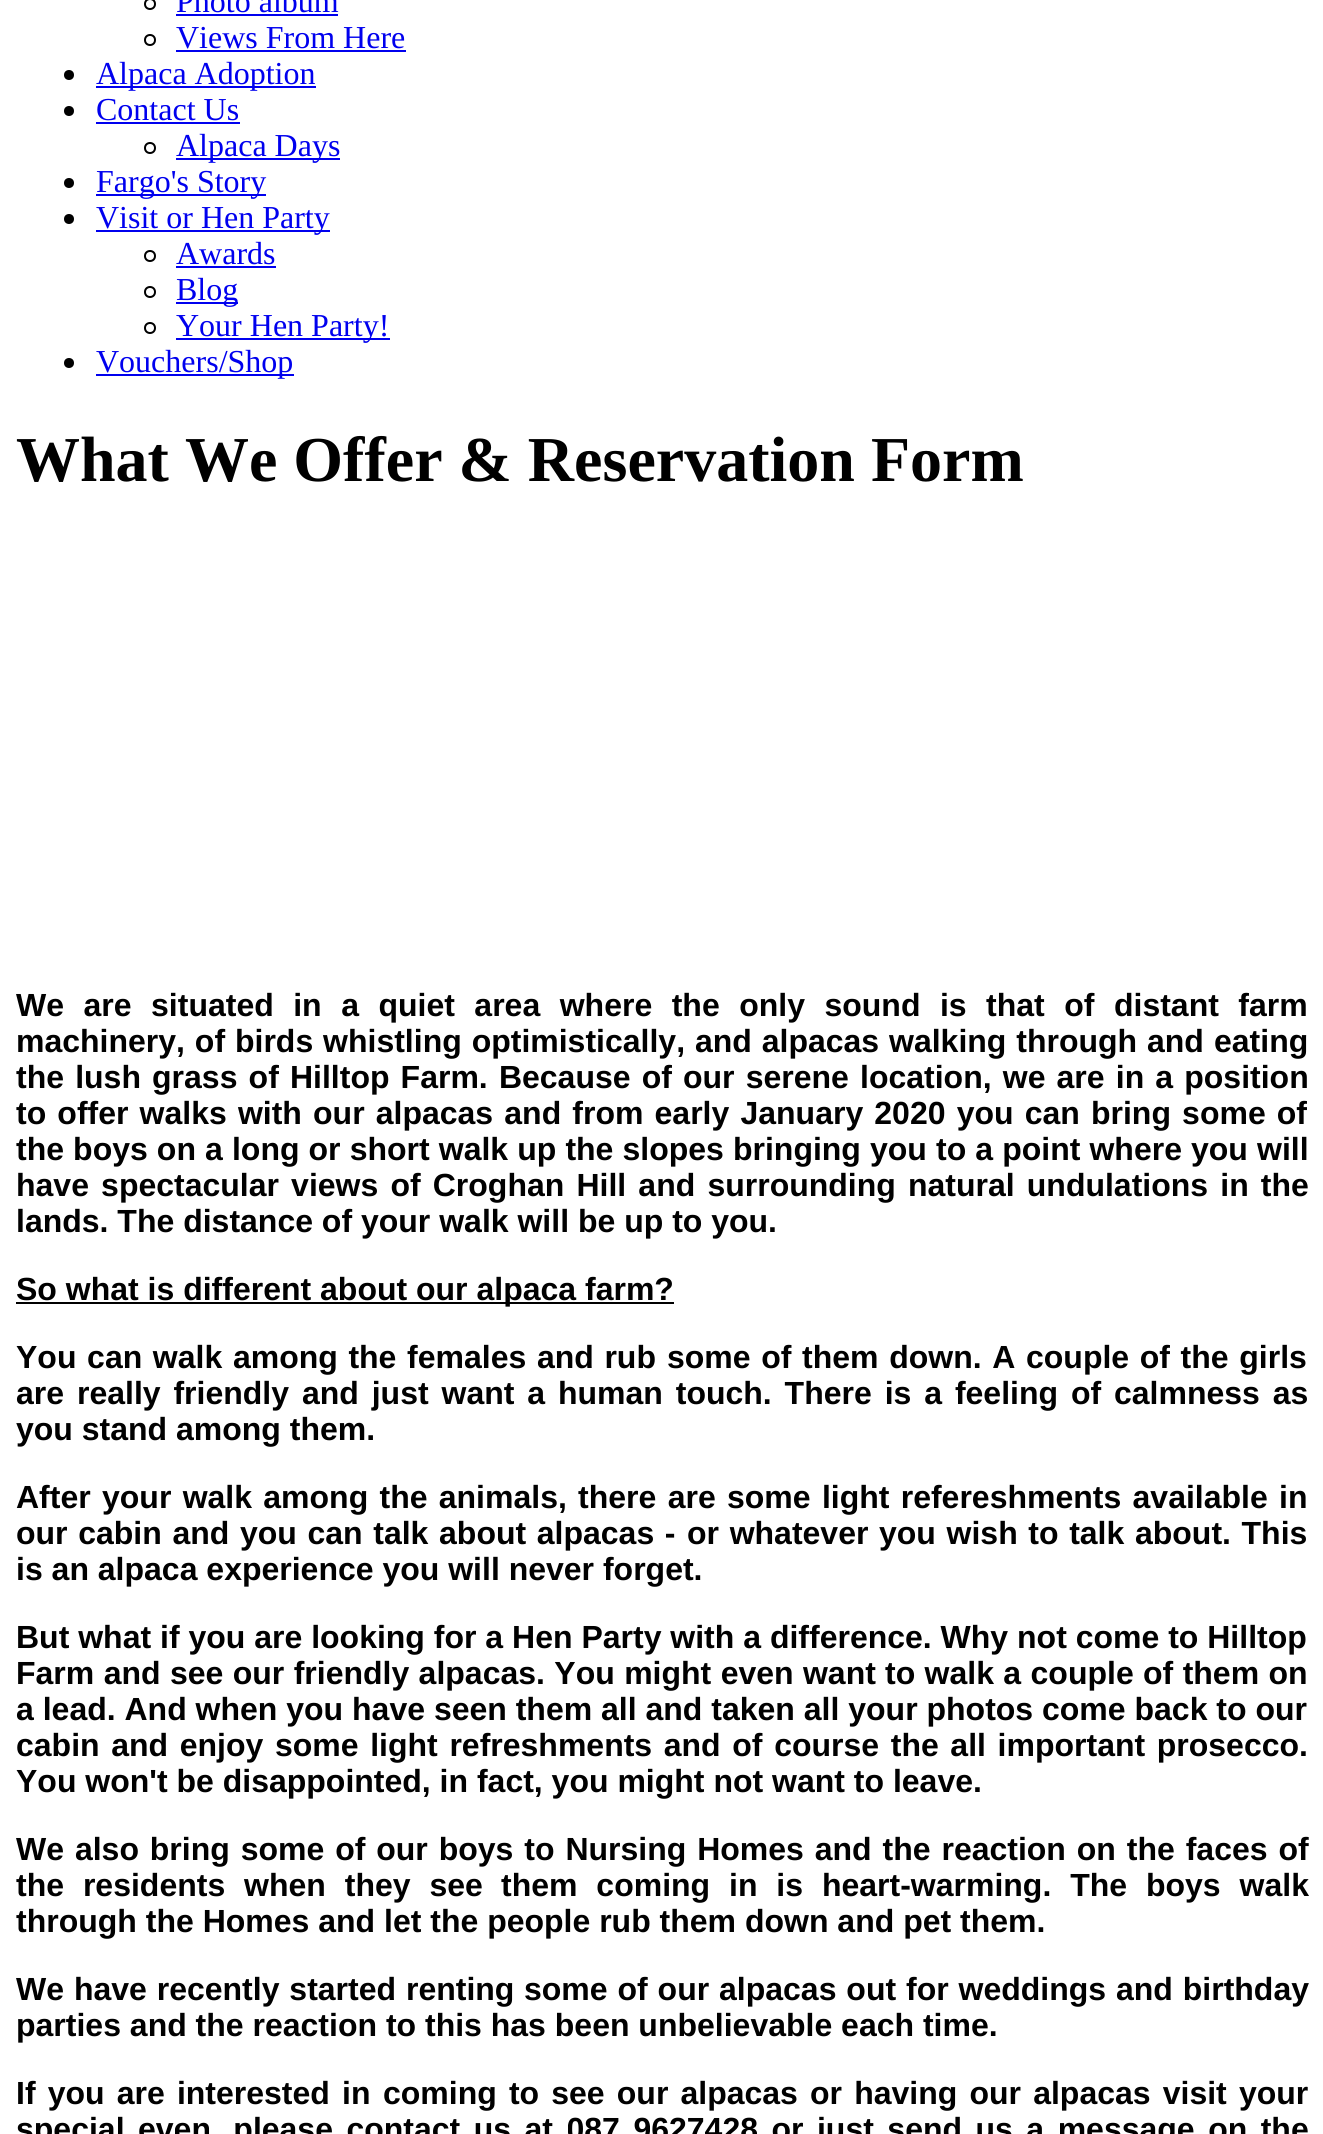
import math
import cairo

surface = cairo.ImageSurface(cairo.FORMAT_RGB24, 1323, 2134)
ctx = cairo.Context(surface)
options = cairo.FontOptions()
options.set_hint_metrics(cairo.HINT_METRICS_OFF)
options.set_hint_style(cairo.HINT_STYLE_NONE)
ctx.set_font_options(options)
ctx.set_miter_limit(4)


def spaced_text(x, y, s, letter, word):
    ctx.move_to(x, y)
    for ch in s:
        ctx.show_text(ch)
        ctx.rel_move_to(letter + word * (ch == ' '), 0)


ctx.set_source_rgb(1, 1, 1)
ctx.paint()
ctx.arc(150, 4, 5, 0, 2 * math.pi)
ctx.set_source_rgb(0, 0, 0)
ctx.stroke()
ctx.select_font_face("Liberation Serif")
ctx.set_font_size(32)
ctx.set_source_rgb(0, 0, 0.933)
ctx.move_to(176, 12)
ctx.show_text("Photo album")
ctx.rectangle(176, 14, 162, 2)
ctx.fill()
ctx.arc(150, 40, 5, 0, 2 * math.pi)
ctx.set_source_rgb(0, 0, 0)
ctx.stroke()
ctx.set_source_rgb(0, 0, 0.933)
ctx.move_to(176, 48)
ctx.show_text("Views From Here")
ctx.rectangle(176, 50, 230, 2)
ctx.fill()
ctx.set_source_rgb(0, 0, 0)
ctx.arc(69, 75, 5, 0, 2 * math.pi)
ctx.fill()
ctx.set_source_rgb(0, 0, 0.933)
ctx.rectangle(96, 86, 220, 2)
ctx.fill()
ctx.move_to(96, 84)
ctx.show_text("Alpaca Adoption")
ctx.set_source_rgb(0, 0, 0)
ctx.new_path()
ctx.arc(69, 111, 5, 0, 2 * math.pi)
ctx.fill()
ctx.set_source_rgb(0, 0, 0.933)
ctx.move_to(96, 120)
ctx.show_text("Contact Us")
ctx.rectangle(96, 122, 144, 2)
ctx.fill()
ctx.arc(150, 148, 5, 0, 2 * math.pi)
ctx.set_source_rgb(0, 0, 0)
ctx.stroke()
ctx.set_source_rgb(0, 0, 0.933)
ctx.rectangle(176, 158, 164, 2)
ctx.fill()
ctx.move_to(176, 156)
ctx.show_text("Alpaca Days")
ctx.set_source_rgb(0, 0, 0)
ctx.new_path()
ctx.arc(69, 183, 5, 0, 2 * math.pi)
ctx.fill()
ctx.set_source_rgb(0, 0, 0.933)
ctx.rectangle(96, 194, 170, 2)
ctx.fill()
ctx.move_to(96, 192)
ctx.show_text("Fargo's Story")
ctx.set_source_rgb(0, 0, 0)
ctx.new_path()
ctx.arc(69, 219, 5, 0, 2 * math.pi)
ctx.fill()
ctx.set_source_rgb(0, 0, 0.933)
ctx.rectangle(96, 230, 234, 2)
ctx.fill()
ctx.move_to(96, 228)
ctx.show_text("Visit or Hen Party")
ctx.new_path()
ctx.arc(150, 256, 5, 0, 2 * math.pi)
ctx.set_source_rgb(0, 0, 0)
ctx.stroke()
ctx.set_source_rgb(0, 0, 0.933)
ctx.move_to(176, 264)
ctx.show_text("Awards")
ctx.rectangle(176, 266, 100, 2)
ctx.fill()
ctx.arc(150, 292, 5, 0, 2 * math.pi)
ctx.set_source_rgb(0, 0, 0)
ctx.stroke()
ctx.set_source_rgb(0, 0, 0.933)
ctx.rectangle(176, 302, 62, 2)
ctx.fill()
ctx.move_to(176, 300)
ctx.show_text("Blog")
ctx.new_path()
ctx.arc(150, 328, 5, 0, 2 * math.pi)
ctx.set_source_rgb(0, 0, 0)
ctx.stroke()
ctx.set_source_rgb(0, 0, 0.933)
ctx.rectangle(176, 338, 214, 2)
ctx.fill()
ctx.move_to(176, 336)
ctx.show_text("Your Hen Party!")
ctx.set_source_rgb(0, 0, 0)
ctx.new_path()
ctx.arc(69, 363, 5, 0, 2 * math.pi)
ctx.fill()
ctx.set_source_rgb(0, 0, 0.933)
ctx.rectangle(96, 374, 198, 2)
ctx.fill()
ctx.move_to(96, 372)
ctx.show_text("Vouchers/Shop")
ctx.select_font_face("Liberation Serif", cairo.FONT_SLANT_NORMAL, cairo.FONT_WEIGHT_BOLD)
ctx.set_font_size(64)
ctx.set_source_rgb(0, 0, 0)
ctx.move_to(16, 481)
ctx.show_text("What We Offer & Reservation Form")
ctx.select_font_face("Liberation Sans", cairo.FONT_SLANT_NORMAL, cairo.FONT_WEIGHT_BOLD)
ctx.set_font_size(32)
spaced_text(16, 1016, "We are situated in a quiet area where the only sound is that of distant farm", 0, 10.6)
spaced_text(16, 1052, "machinery, of birds whistling optimistically, and alpacas walking through and", 0, 1)
ctx.move_to(1214, 1052)
ctx.show_text("eating")
spaced_text(16, 1088, "the lush grass of Hilltop Farm. Because of our serene location, we are in a position", 0, 2.25)
spaced_text(16, 1124, "to offer walks with our alpacas and from early January 2020 you can bring some of", 0, 2.25)
spaced_text(16, 1160, "the boys on a long or short walk up the slopes bringing you to a point where you will", 0, 0.2)
spaced_text(16, 1196, "have spectacular views of Croghan Hill and surrounding natural undulations in the", 0, 3.25)
ctx.move_to(16, 1232)
ctx.show_text("lands. The distance of your walk will be up to you.")
ctx.rectangle(16, 1302, 658, 2)
ctx.fill()
ctx.move_to(16, 1300)
ctx.show_text("So what is different about our alpaca farm?")
spaced_text(16, 1368, "You can walk among the females and rub", 0, 1.75)
spaced_text(667, 1368, "some of them down. A couple of the girls", 0, 1.75)
spaced_text(16, 1404, "are really friendly and just want a human touch. There is a feeling of calmness as", 0, 4)
ctx.move_to(16, 1440)
ctx.show_text("you stand among them.")
ctx.move_to(16, 1508)
ctx.show_text("After")
spaced_text(102, 1508, "your walk among the animals, there are some light refereshments available in", 0, 2.4)
spaced_text(16, 1544, "our cabin and you can talk about alpacas -", 0, 1.75)
spaced_text(687, 1544, "or whatever you wish to talk about. This", 0, 1.75)
ctx.move_to(16, 1580)
ctx.show_text("is an alpaca experience you will never forget.")
ctx.move_to(16, 1648)
ctx.show_text("But what if you are looking for a Hen Party with a difference. Why not come to Hilltop")
spaced_text(16, 1684, "Farm and see our friendly alpacas. You might even want", 0, 0.5)
spaced_text(885, 1684, "to walk a couple of them on", 0, 0.5)
ctx.move_to(16, 1720)
ctx.show_text("a lead. And when you have seen them all and taken all your photos come back to our")
spaced_text(16, 1756, "cabin and enjoy some light refreshments and of course the all important prosecco.", 0, 2.75)
ctx.move_to(16, 1792)
ctx.show_text("You won't be disappointed, in fact, you might not want to leave.")
spaced_text(16, 1860, "We also bring some of our boys to Nursing Homes and the reaction on the faces of", 0, 2)
spaced_text(16, 1896, "the residents when they see", 0, 10)
spaced_text(501, 1896, "them coming in is heart-warming. The boys walk", 0, 10)
ctx.move_to(16, 1932)
ctx.show_text("through the Homes and let the people rub them down and pet them.")
spaced_text(16, 2000, "We have recently started renting", 0, 1)
spaced_text(524, 2000, "some of our alpacas out for weddings and birthday", 0, 1)
ctx.move_to(16, 2036)
ctx.show_text("parties and the reaction to this has been unbelievable each time.")
spaced_text(16, 2104, "If you are interested in", 0, 3.25)
spaced_text(383, 2104, "coming to see our alpacas or having our alpacas visit your", 0, 3.25)
spaced_text(16, 2140, "special even, please contact us at 087 9627428 or just send us a message on the", 0, 4.6)
surface.write_to_png("page.png")
